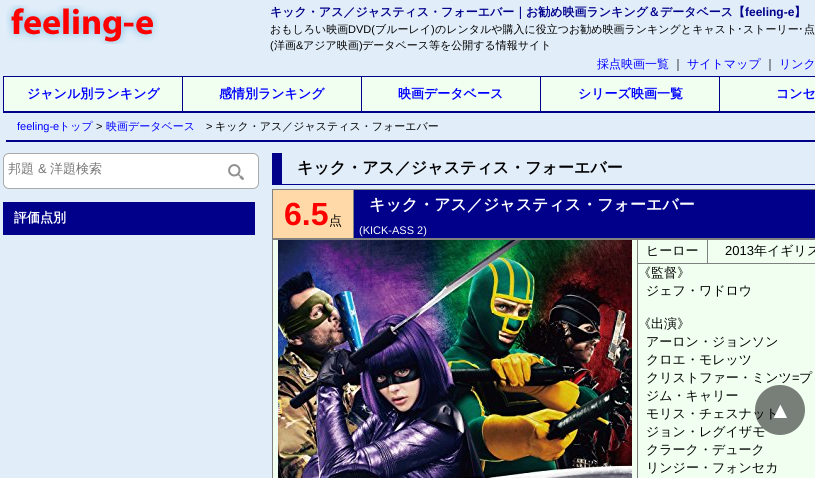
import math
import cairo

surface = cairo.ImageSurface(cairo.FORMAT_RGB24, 815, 478)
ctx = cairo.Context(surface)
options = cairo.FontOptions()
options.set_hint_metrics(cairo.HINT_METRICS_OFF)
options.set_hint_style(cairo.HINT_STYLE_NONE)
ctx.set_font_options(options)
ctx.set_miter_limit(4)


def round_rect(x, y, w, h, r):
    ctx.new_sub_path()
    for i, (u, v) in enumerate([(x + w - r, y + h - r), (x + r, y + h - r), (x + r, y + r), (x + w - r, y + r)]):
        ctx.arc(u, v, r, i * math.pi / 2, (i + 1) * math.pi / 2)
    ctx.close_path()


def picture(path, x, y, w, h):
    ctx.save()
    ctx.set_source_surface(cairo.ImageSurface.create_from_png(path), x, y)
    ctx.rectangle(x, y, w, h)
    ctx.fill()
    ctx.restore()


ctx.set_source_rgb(0.882, 0.929, 0.976)
ctx.paint()
picture("img1.png", 6, 5, 153, 39)
ctx.select_font_face("WenQuanYi Zen Hei", cairo.FONT_SLANT_NORMAL, cairo.FONT_WEIGHT_BOLD)
ctx.set_font_size(12)
ctx.set_source_rgb(0, 0, 0.545)
ctx.move_to(270, 16)
ctx.show_text("キック・アス／ジャスティス・フォーエバー｜お勧め映画ランキング＆データベース【")
ctx.select_font_face("Liberation Sans", cairo.FONT_SLANT_NORMAL, cairo.FONT_WEIGHT_BOLD)
ctx.move_to(745, 16)
ctx.show_text("feeling-e")
ctx.select_font_face("WenQuanYi Zen Hei", cairo.FONT_SLANT_NORMAL, cairo.FONT_WEIGHT_BOLD)
ctx.move_to(794, 16)
ctx.show_text("】")
ctx.select_font_face("WenQuanYi Zen Hei Medium")
ctx.set_font_size(11)
ctx.set_source_rgb(0, 0, 0)
ctx.move_to(270, 33)
ctx.show_text("おもしろい映画")
ctx.select_font_face("Liberation Sans")
ctx.move_to(348, 33)
ctx.show_text("DVD(")
ctx.select_font_face("WenQuanYi Zen Hei Medium")
ctx.move_to(375, 33)
ctx.show_text("ブルーレイ")
ctx.select_font_face("Liberation Sans")
ctx.move_to(431, 33)
ctx.show_text(")")
ctx.select_font_face("WenQuanYi Zen Hei Medium")
ctx.move_to(435, 33)
ctx.show_text("のレンタルや購入に役立つお勧め映画ランキングとキャスト")
ctx.select_font_face("IPAGothic")
ctx.move_to(737, 33)
ctx.show_text("･")
ctx.select_font_face("WenQuanYi Zen Hei Medium")
ctx.move_to(743, 33)
ctx.show_text("ストーリー")
ctx.select_font_face("IPAGothic")
ctx.move_to(798, 33)
ctx.show_text("･")
ctx.select_font_face("WenQuanYi Zen Hei Medium")
ctx.move_to(804, 33)
ctx.show_text("点")
ctx.select_font_face("Liberation Sans")
ctx.move_to(270, 49)
ctx.show_text("(")
ctx.select_font_face("WenQuanYi Zen Hei Medium")
ctx.move_to(274, 49)
ctx.show_text("洋画")
ctx.select_font_face("Liberation Sans")
ctx.move_to(296, 49)
ctx.show_text("&")
ctx.select_font_face("WenQuanYi Zen Hei Medium")
ctx.move_to(303, 49)
ctx.show_text("アジア映画")
ctx.select_font_face("Liberation Sans")
ctx.move_to(359, 49)
ctx.show_text(")")
ctx.select_font_face("WenQuanYi Zen Hei Medium")
ctx.move_to(362, 49)
ctx.show_text("データベース等を公開する情報サイト")
ctx.set_font_size(12)
ctx.set_source_rgb(0, 0, 1)
ctx.move_to(597, 68)
ctx.show_text("採点映画一覧")
ctx.set_source_rgb(0, 0, 0)
ctx.move_to(672, 68)
ctx.show_text("｜")
ctx.set_source_rgb(0, 0, 1)
ctx.move_to(687, 68)
ctx.show_text("サイトマップ")
ctx.set_source_rgb(0, 0, 0)
ctx.move_to(764, 68)
ctx.show_text("｜")
ctx.set_source_rgb(0, 0, 1)
ctx.move_to(779, 68)
ctx.show_text("リンク")
ctx.set_source_rgb(0, 0, 0.545)
ctx.rectangle(3, 76, 812, 1)
ctx.fill()
ctx.rectangle(3, 111, 812, 2)
ctx.fill()
ctx.rectangle(3, 76, 1, 37)
ctx.fill()
ctx.set_source_rgb(0.941, 1, 0.941)
ctx.rectangle(4, 77, 178, 34)
ctx.fill()
ctx.select_font_face("WenQuanYi Zen Hei", cairo.FONT_SLANT_NORMAL, cairo.FONT_WEIGHT_BOLD)
ctx.set_font_size(13)
ctx.set_source_rgb(0, 0, 1)
ctx.move_to(27, 98)
ctx.show_text("ジャンル別ランキング")
ctx.set_source_rgb(0, 0, 0.545)
ctx.rectangle(182, 76, 1, 37)
ctx.fill()
ctx.set_source_rgb(0.941, 1, 0.941)
ctx.rectangle(183, 77, 178, 34)
ctx.fill()
ctx.set_source_rgb(0, 0, 1)
ctx.move_to(219, 98)
ctx.show_text("感情別ランキング")
ctx.set_source_rgb(0, 0, 0.545)
ctx.rectangle(361, 76, 1, 37)
ctx.fill()
ctx.set_source_rgb(0.941, 1, 0.941)
ctx.rectangle(362, 77, 178, 34)
ctx.fill()
ctx.set_source_rgb(0, 0, 1)
ctx.move_to(398, 98)
ctx.show_text("映画データベース")
ctx.set_source_rgb(0, 0, 0.545)
ctx.rectangle(540, 76, 1, 37)
ctx.fill()
ctx.set_source_rgb(0.941, 1, 0.941)
ctx.rectangle(541, 77, 178, 34)
ctx.fill()
ctx.set_source_rgb(0, 0, 1)
ctx.move_to(578, 98)
ctx.show_text("シリーズ映画一覧")
ctx.set_source_rgb(0, 0, 0.545)
ctx.rectangle(719, 76, 1, 37)
ctx.fill()
ctx.set_source_rgb(0.941, 1, 0.941)
ctx.rectangle(720, 77, 95, 34)
ctx.fill()
ctx.set_source_rgb(0, 0, 1)
ctx.move_to(776, 98)
ctx.show_text("コンセ")
ctx.set_source_rgb(0, 0, 0.545)
ctx.rectangle(6, 140, 809, 2)
ctx.fill()
ctx.select_font_face("Liberation Sans")
ctx.set_font_size(11)
ctx.set_source_rgb(0, 0, 1)
ctx.move_to(17, 130)
ctx.show_text("feeling-e")
ctx.select_font_face("WenQuanYi Zen Hei Medium")
ctx.move_to(59, 130)
ctx.show_text("トップ")
ctx.select_font_face("Liberation Sans")
ctx.set_source_rgb(0, 0, 0)
ctx.move_to(96, 130)
ctx.show_text(">")
ctx.select_font_face("WenQuanYi Zen Hei Medium")
ctx.set_source_rgb(0, 0, 1)
ctx.move_to(106, 130)
ctx.show_text("映画データベース")
ctx.select_font_face("Liberation Sans")
ctx.set_source_rgb(0, 0, 0)
ctx.move_to(206, 130)
ctx.show_text(">")
ctx.select_font_face("WenQuanYi Zen Hei Medium")
ctx.move_to(215, 130)
ctx.show_text("キック・アス／ジャスティス・フォーエバー")
ctx.set_source_rgb(1, 1, 1)
round_rect(3.5, 153.5, 255, 35, 5.5)
ctx.fill_preserve()
ctx.set_source_rgb(0.667, 0.667, 0.667)
ctx.set_line_width(1)
ctx.stroke()
ctx.set_font_size(13)
ctx.set_source_rgb(0.459, 0.459, 0.459)
ctx.move_to(8, 173)
ctx.show_text("邦題")
ctx.select_font_face("Liberation Sans")
ctx.move_to(38, 173)
ctx.show_text("&")
ctx.select_font_face("WenQuanYi Zen Hei Medium")
ctx.move_to(50, 173)
ctx.show_text("洋題検索")
picture("img2.png", 228, 164, 16, 16)
ctx.rectangle(3.5, 202.5, 251, 32)
ctx.set_source_rgb(0, 0, 0.545)
ctx.stroke()
ctx.rectangle(4, 203, 250, 31)
ctx.fill()
ctx.select_font_face("WenQuanYi Zen Hei", cairo.FONT_SLANT_NORMAL, cairo.FONT_WEIGHT_BOLD)
ctx.set_source_rgb(1, 1, 1)
ctx.move_to(14, 222)
ctx.show_text("評価点別")
ctx.set_source_rgb(0, 0, 0.545)
ctx.rectangle(282, 184, 533, 1)
ctx.fill()
ctx.rectangle(272, 153, 10, 32)
ctx.fill()
ctx.set_font_size(16)
ctx.set_source_rgb(0, 0, 0)
ctx.move_to(297, 173)
ctx.show_text("キック・アス／ジャスティス・フォーエバー")
ctx.set_source_rgb(0.502, 0.502, 0.502)
ctx.rectangle(272, 189, 543, 1)
ctx.fill()
ctx.rectangle(272, 238, 543, 2)
ctx.fill()
ctx.rectangle(272, 189, 1, 289)
ctx.fill()
ctx.set_source_rgb(1, 0.855, 0.659)
ctx.rectangle(273, 190, 80, 48)
ctx.fill()
ctx.select_font_face("Liberation Sans", cairo.FONT_SLANT_NORMAL, cairo.FONT_WEIGHT_BOLD)
ctx.set_font_size(32)
ctx.set_source_rgb(1, 0, 0)
ctx.move_to(284, 225)
ctx.show_text("6.5")
ctx.select_font_face("WenQuanYi Zen Hei Medium")
ctx.set_font_size(13)
ctx.set_source_rgb(0, 0, 0)
ctx.move_to(329, 225)
ctx.show_text("点")
ctx.set_source_rgb(0, 0, 0.545)
ctx.rectangle(354, 190, 461, 48)
ctx.fill()
ctx.set_source_rgb(0.502, 0.502, 0.502)
ctx.rectangle(353, 189, 1, 50)
ctx.fill()
ctx.select_font_face("WenQuanYi Zen Hei", cairo.FONT_SLANT_NORMAL, cairo.FONT_WEIGHT_BOLD)
ctx.set_font_size(16)
ctx.set_source_rgb(1, 1, 1)
ctx.move_to(369, 210)
ctx.show_text("キック・アス／ジャスティス・フォーエバー")
ctx.select_font_face("Liberation Sans")
ctx.set_font_size(11)
ctx.move_to(359, 234)
ctx.show_text("(KICK-ASS 2)")
ctx.set_source_rgb(0.941, 1, 0.941)
ctx.rectangle(273, 240, 542, 238)
ctx.fill()
picture("img3.png", 278, 240, 354, 238)
ctx.select_font_face("WenQuanYi Zen Hei Medium")
ctx.set_font_size(13)
ctx.set_source_rgb(0, 0, 0)
ctx.move_to(646, 255)
ctx.show_text("ヒーロー")
ctx.set_source_rgb(0.502, 0.502, 0.502)
ctx.rectangle(637, 263, 178, 1)
ctx.fill()
ctx.rectangle(707, 239, 1, 25)
ctx.fill()
ctx.select_font_face("Liberation Sans")
ctx.set_source_rgb(0, 0, 0)
ctx.move_to(725, 255)
ctx.show_text("2013")
ctx.select_font_face("WenQuanYi Zen Hei Medium")
ctx.move_to(754, 255)
ctx.show_text("年イギリス")
ctx.set_source_rgb(0.502, 0.502, 0.502)
ctx.rectangle(637, 239, 1, 239)
ctx.fill()
ctx.set_source_rgb(0, 0, 0)
ctx.move_to(638, 277)
ctx.show_text("《監督》")
ctx.move_to(646, 295)
ctx.show_text("ジェフ・ワドロウ")
ctx.move_to(638, 328)
ctx.show_text("《出演》")
ctx.move_to(646, 346)
ctx.show_text("アーロン・ジョンソン")
ctx.move_to(646, 364)
ctx.show_text("クロエ・モレッツ")
ctx.move_to(646, 382)
ctx.show_text("クリストファー・ミンツ")
ctx.select_font_face("Liberation Sans")
ctx.move_to(792, 382)
ctx.show_text("=")
ctx.select_font_face("WenQuanYi Zen Hei Medium")
ctx.move_to(799, 382)
ctx.show_text("プ")
ctx.move_to(646, 400)
ctx.show_text("ジム・キャリー")
ctx.move_to(646, 418)
ctx.show_text("モリス・チェスナット")
ctx.move_to(646, 436)
ctx.show_text("ジョン・レグイザモ")
ctx.move_to(646, 454)
ctx.show_text("クラーク・デューク")
ctx.move_to(646, 472)
ctx.show_text("リンジー・フォンセカ")
ctx.set_source_rgba(0, 0, 0, 0.5)
ctx.new_path()
ctx.arc(780, 410, 25, 0, 2 * math.pi)
ctx.fill()
ctx.select_font_face("Liberation Sans")
ctx.set_font_size(23)
ctx.set_source_rgb(1, 1, 1)
ctx.move_to(769, 418)
ctx.show_text("▲")
surface.write_to_png("page.png")
